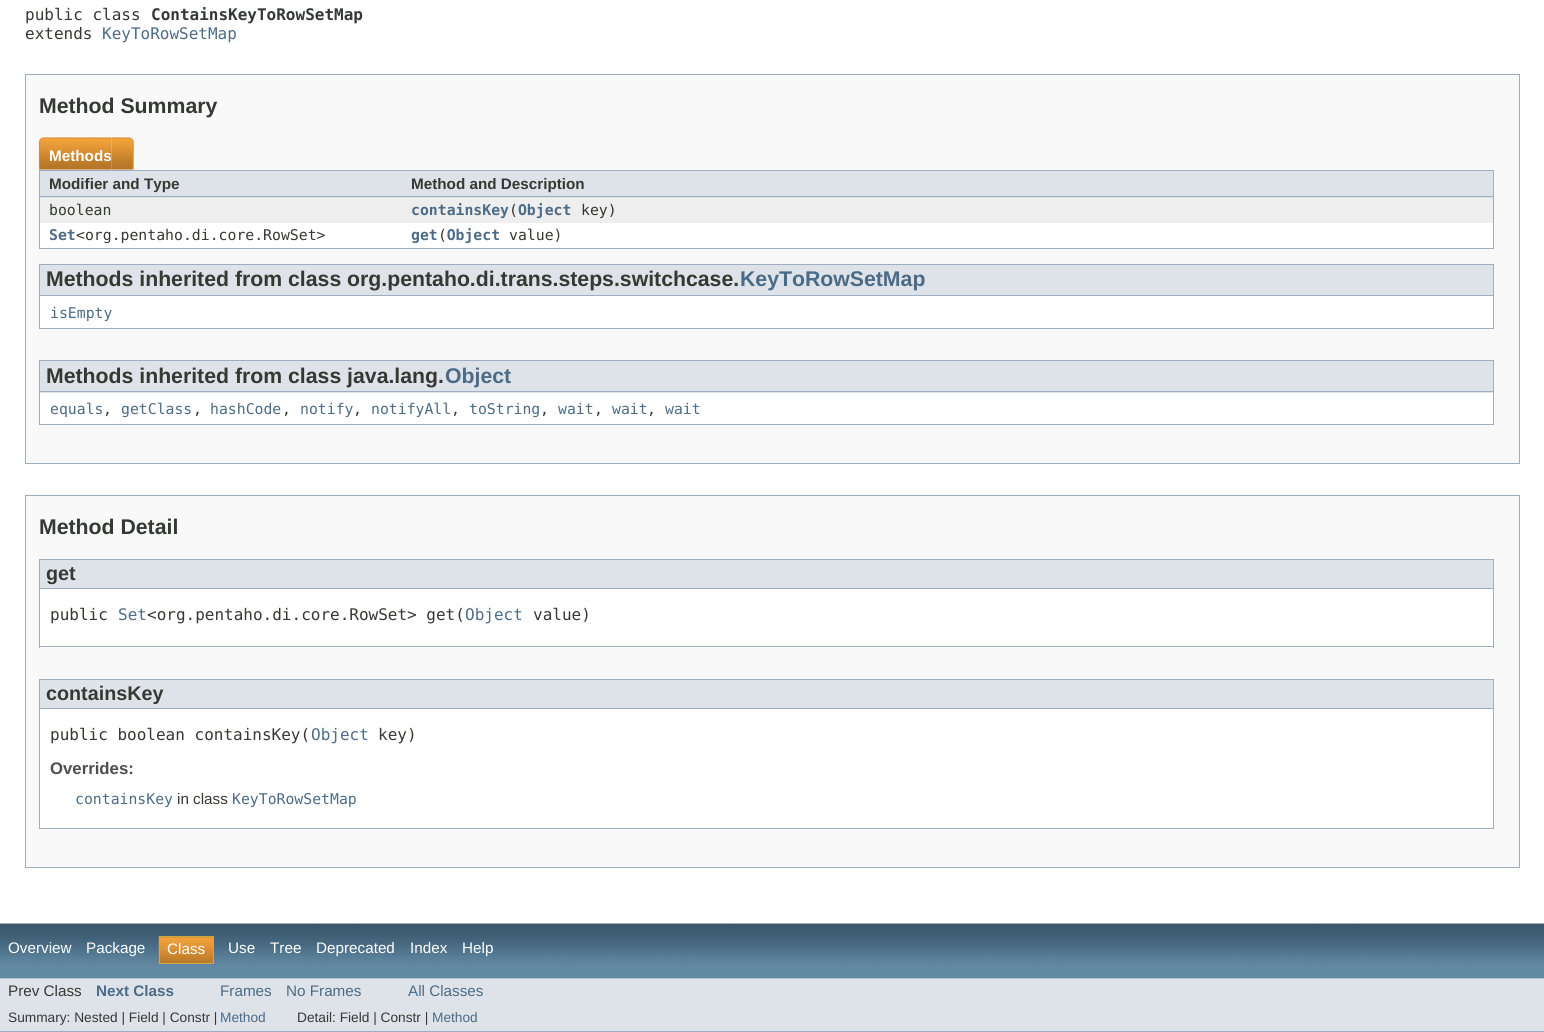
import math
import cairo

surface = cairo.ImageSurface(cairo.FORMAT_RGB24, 1544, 1032)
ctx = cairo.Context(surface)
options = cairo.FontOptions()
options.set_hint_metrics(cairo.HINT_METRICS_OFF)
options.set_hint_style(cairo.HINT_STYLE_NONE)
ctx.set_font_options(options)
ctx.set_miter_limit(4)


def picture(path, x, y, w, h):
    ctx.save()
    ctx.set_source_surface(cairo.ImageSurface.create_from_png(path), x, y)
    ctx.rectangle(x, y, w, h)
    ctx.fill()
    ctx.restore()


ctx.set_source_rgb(1, 1, 1)
ctx.paint()
ctx.select_font_face("DejaVu Sans Mono")
ctx.set_font_size(16)
ctx.set_source_rgb(0.208, 0.22, 0.2)
ctx.move_to(25, 20)
ctx.show_text("public class")
ctx.select_font_face("DejaVu Sans Mono", cairo.FONT_SLANT_NORMAL, cairo.FONT_WEIGHT_BOLD)
ctx.move_to(151, 20)
ctx.show_text("ContainsKeyToRowSetMap")
ctx.select_font_face("DejaVu Sans Mono")
ctx.move_to(25, 39)
ctx.show_text("extends")
ctx.set_source_rgb(0.298, 0.42, 0.529)
ctx.move_to(102, 39)
ctx.show_text("KeyToRowSetMap")
ctx.set_source_rgb(0.976, 0.976, 0.976)
ctx.rectangle(25.5, 74.5, 1494, 389)
ctx.fill_preserve()
ctx.set_source_rgb(0.62, 0.678, 0.753)
ctx.set_line_width(1)
ctx.stroke()
ctx.select_font_face("Liberation Sans", cairo.FONT_SLANT_NORMAL, cairo.FONT_WEIGHT_BOLD)
ctx.set_font_size(21.25)
ctx.set_source_rgb(0.208, 0.22, 0.2)
ctx.move_to(39, 113)
ctx.show_text("Method Summary")
ctx.set_source_rgb(0.62, 0.678, 0.753)
ctx.rectangle(39, 248, 1455, 1)
ctx.fill()
picture("img1.png", 38, 137, 74, 33)
ctx.set_font_size(15.25)
ctx.set_source_rgb(1, 1, 1)
ctx.move_to(49, 161)
ctx.show_text("Methods")
picture("img2.png", 111, 137, 23, 33)
ctx.set_source_rgb(0.871, 0.89, 0.914)
ctx.rectangle(40, 171, 1453, 27)
ctx.fill()
ctx.set_source_rgb(0.62, 0.678, 0.753)
ctx.rectangle(39, 170, 1455, 1)
ctx.fill()
ctx.rectangle(39, 196, 364, 1)
ctx.fill()
ctx.rectangle(39, 170, 1, 78)
ctx.fill()
ctx.set_source_rgb(0.208, 0.22, 0.2)
ctx.move_to(49, 189)
ctx.show_text("Modifier and Type")
ctx.set_source_rgb(0.62, 0.678, 0.753)
ctx.rectangle(1493, 170, 1, 78)
ctx.fill()
ctx.rectangle(403, 196, 1091, 1)
ctx.fill()
ctx.set_source_rgb(0.208, 0.22, 0.2)
ctx.move_to(411, 189)
ctx.show_text("Method and Description")
ctx.set_source_rgb(0.933, 0.933, 0.937)
ctx.rectangle(40, 198, 1453, 25)
ctx.fill()
ctx.select_font_face("DejaVu Sans Mono")
ctx.set_font_size(14.8)
ctx.set_source_rgb(0.208, 0.22, 0.2)
ctx.move_to(49, 215)
ctx.show_text("boolean")
ctx.select_font_face("DejaVu Sans Mono", cairo.FONT_SLANT_NORMAL, cairo.FONT_WEIGHT_BOLD)
ctx.set_source_rgb(0.298, 0.42, 0.529)
ctx.move_to(411, 215)
ctx.show_text("containsKey Object")
ctx.select_font_face("DejaVu Sans Mono")
ctx.set_source_rgb(0.208, 0.22, 0.2)
ctx.move_to(509, 215)
ctx.show_text("(")
ctx.move_to(581, 215)
ctx.show_text("key)")
ctx.set_source_rgb(1, 1, 1)
ctx.rectangle(40, 223, 1453, 25)
ctx.fill()
ctx.select_font_face("DejaVu Sans Mono", cairo.FONT_SLANT_NORMAL, cairo.FONT_WEIGHT_BOLD)
ctx.set_source_rgb(0.298, 0.42, 0.529)
ctx.move_to(49, 240)
ctx.show_text("Set")
ctx.select_font_face("DejaVu Sans Mono")
ctx.set_source_rgb(0.208, 0.22, 0.2)
ctx.move_to(76, 240)
ctx.show_text("<org.pentaho.di.core.RowSet>")
ctx.select_font_face("DejaVu Sans Mono", cairo.FONT_SLANT_NORMAL, cairo.FONT_WEIGHT_BOLD)
ctx.set_source_rgb(0.298, 0.42, 0.529)
ctx.move_to(411, 240)
ctx.show_text("get Object")
ctx.select_font_face("DejaVu Sans Mono")
ctx.set_source_rgb(0.208, 0.22, 0.2)
ctx.move_to(438, 240)
ctx.show_text("(")
ctx.move_to(509, 240)
ctx.show_text("value)")
ctx.set_source_rgb(1, 1, 1)
ctx.rectangle(40, 296, 1453, 32)
ctx.fill()
ctx.set_source_rgb(0.62, 0.678, 0.753)
ctx.rectangle(1493, 264, 1, 65)
ctx.fill()
ctx.rectangle(39, 328, 1455, 1)
ctx.fill()
ctx.rectangle(39, 264, 1, 65)
ctx.fill()
ctx.set_source_rgb(0.871, 0.89, 0.914)
ctx.rectangle(40, 265, 1453, 30)
ctx.fill()
ctx.set_source_rgb(0.62, 0.678, 0.753)
ctx.rectangle(40, 264, 1453, 1)
ctx.fill()
ctx.rectangle(40, 295, 1453, 1)
ctx.fill()
ctx.select_font_face("Liberation Sans", cairo.FONT_SLANT_NORMAL, cairo.FONT_WEIGHT_BOLD)
ctx.set_font_size(21.25)
ctx.set_source_rgb(0.208, 0.22, 0.2)
ctx.move_to(46, 286)
ctx.show_text("Methods inherited from class org.pentaho.di.trans.steps.switchcase.")
ctx.set_source_rgb(0.298, 0.42, 0.529)
ctx.move_to(740, 286)
ctx.show_text("KeyToRowSetMap")
ctx.select_font_face("DejaVu Sans Mono")
ctx.set_font_size(14.8)
ctx.move_to(50, 318)
ctx.show_text("isEmpty")
ctx.set_source_rgb(1, 1, 1)
ctx.rectangle(40, 393, 1453, 31)
ctx.fill()
ctx.set_source_rgb(0.62, 0.678, 0.753)
ctx.rectangle(1493, 360, 1, 65)
ctx.fill()
ctx.rectangle(39, 424, 1455, 1)
ctx.fill()
ctx.rectangle(39, 360, 1, 65)
ctx.fill()
ctx.set_source_rgb(0.871, 0.89, 0.914)
ctx.rectangle(40, 361, 1453, 32)
ctx.fill()
ctx.set_source_rgb(0.62, 0.678, 0.753)
ctx.rectangle(40, 360, 1453, 1)
ctx.fill()
ctx.rectangle(40, 391, 1453, 1)
ctx.fill()
ctx.select_font_face("Liberation Sans", cairo.FONT_SLANT_NORMAL, cairo.FONT_WEIGHT_BOLD)
ctx.set_font_size(21.25)
ctx.set_source_rgb(0.208, 0.22, 0.2)
ctx.move_to(46, 383)
ctx.show_text("Methods inherited from class java.lang.")
ctx.set_source_rgb(0.298, 0.42, 0.529)
ctx.move_to(445, 383)
ctx.show_text("Object")
ctx.select_font_face("DejaVu Sans Mono")
ctx.set_font_size(14.8)
ctx.move_to(50, 414)
ctx.show_text("equals")
ctx.set_source_rgb(0.208, 0.22, 0.2)
ctx.move_to(103, 414)
ctx.show_text(",")
ctx.set_source_rgb(0.298, 0.42, 0.529)
ctx.move_to(121, 414)
ctx.show_text("getClass")
ctx.set_source_rgb(0.208, 0.22, 0.2)
ctx.move_to(193, 414)
ctx.show_text(",")
ctx.set_source_rgb(0.298, 0.42, 0.529)
ctx.move_to(210, 414)
ctx.show_text("hashCode")
ctx.set_source_rgb(0.208, 0.22, 0.2)
ctx.move_to(282, 414)
ctx.show_text(",")
ctx.set_source_rgb(0.298, 0.42, 0.529)
ctx.move_to(300, 414)
ctx.show_text("notify")
ctx.set_source_rgb(0.208, 0.22, 0.2)
ctx.move_to(353, 414)
ctx.show_text(",")
ctx.set_source_rgb(0.298, 0.42, 0.529)
ctx.move_to(371, 414)
ctx.show_text("notifyAll")
ctx.set_source_rgb(0.208, 0.22, 0.2)
ctx.move_to(451, 414)
ctx.show_text(",")
ctx.set_source_rgb(0.298, 0.42, 0.529)
ctx.move_to(469, 414)
ctx.show_text("toString")
ctx.set_source_rgb(0.208, 0.22, 0.2)
ctx.move_to(540, 414)
ctx.show_text(",")
ctx.set_source_rgb(0.298, 0.42, 0.529)
ctx.move_to(558, 414)
ctx.show_text("wait")
ctx.set_source_rgb(0.208, 0.22, 0.2)
ctx.move_to(594, 414)
ctx.show_text(",")
ctx.set_source_rgb(0.298, 0.42, 0.529)
ctx.move_to(612, 414)
ctx.show_text("wait")
ctx.set_source_rgb(0.208, 0.22, 0.2)
ctx.move_to(647, 414)
ctx.show_text(",")
ctx.set_source_rgb(0.298, 0.42, 0.529)
ctx.move_to(665, 414)
ctx.show_text("wait")
ctx.set_source_rgb(0.976, 0.976, 0.976)
ctx.rectangle(25.5, 495.5, 1494, 372)
ctx.fill_preserve()
ctx.set_source_rgb(0.62, 0.678, 0.753)
ctx.stroke()
ctx.select_font_face("Liberation Sans", cairo.FONT_SLANT_NORMAL, cairo.FONT_WEIGHT_BOLD)
ctx.set_font_size(21.25)
ctx.set_source_rgb(0.208, 0.22, 0.2)
ctx.move_to(39, 534)
ctx.show_text("Method Detail")
ctx.set_source_rgb(1, 1, 1)
ctx.rectangle(40, 589, 1453, 59)
ctx.fill()
ctx.set_source_rgb(0.62, 0.678, 0.753)
ctx.rectangle(1493, 559, 1, 89)
ctx.fill()
ctx.rectangle(39, 646, 1455, 1)
ctx.fill()
ctx.rectangle(39, 559, 1, 89)
ctx.fill()
ctx.set_source_rgb(0.871, 0.89, 0.914)
ctx.rectangle(40, 560, 1453, 28)
ctx.fill()
ctx.set_source_rgb(0.62, 0.678, 0.753)
ctx.rectangle(40, 559, 1453, 1)
ctx.fill()
ctx.rectangle(40, 588, 1453, 1)
ctx.fill()
ctx.set_font_size(19.75)
ctx.set_source_rgb(0.208, 0.22, 0.2)
ctx.move_to(46, 580)
ctx.show_text("get")
ctx.select_font_face("DejaVu Sans Mono")
ctx.set_font_size(16)
ctx.move_to(50, 620)
ctx.show_text("public")
ctx.set_source_rgb(0.298, 0.42, 0.529)
ctx.move_to(118, 620)
ctx.show_text("Set")
ctx.set_source_rgb(0.208, 0.22, 0.2)
ctx.move_to(147, 620)
ctx.show_text("<org.pentaho.di.core.RowSet> get(")
ctx.set_source_rgb(0.298, 0.42, 0.529)
ctx.move_to(465, 620)
ctx.show_text("Object")
ctx.set_source_rgb(0.208, 0.22, 0.2)
ctx.move_to(533, 620)
ctx.show_text("value)")
ctx.set_source_rgb(1, 1, 1)
ctx.rectangle(40, 709, 1453, 119)
ctx.fill()
ctx.set_source_rgb(0.62, 0.678, 0.753)
ctx.rectangle(1493, 679, 1, 150)
ctx.fill()
ctx.rectangle(39, 828, 1455, 1)
ctx.fill()
ctx.rectangle(39, 679, 1, 150)
ctx.fill()
ctx.set_source_rgb(0.871, 0.89, 0.914)
ctx.rectangle(40, 680, 1453, 28)
ctx.fill()
ctx.set_source_rgb(0.62, 0.678, 0.753)
ctx.rectangle(40, 679, 1453, 1)
ctx.fill()
ctx.rectangle(40, 708, 1453, 1)
ctx.fill()
ctx.select_font_face("Liberation Sans", cairo.FONT_SLANT_NORMAL, cairo.FONT_WEIGHT_BOLD)
ctx.set_font_size(19.75)
ctx.set_source_rgb(0.208, 0.22, 0.2)
ctx.move_to(46, 700)
ctx.show_text("containsKey")
ctx.select_font_face("DejaVu Sans Mono")
ctx.set_font_size(16)
ctx.move_to(50, 740)
ctx.show_text("public boolean containsKey(")
ctx.set_source_rgb(0.298, 0.42, 0.529)
ctx.move_to(311, 740)
ctx.show_text("Object")
ctx.set_source_rgb(0.208, 0.22, 0.2)
ctx.move_to(378, 740)
ctx.show_text("key)")
ctx.select_font_face("Liberation Sans", cairo.FONT_SLANT_NORMAL, cairo.FONT_WEIGHT_BOLD)
ctx.set_font_size(16.75)
ctx.set_source_rgb(0.306, 0.306, 0.306)
ctx.move_to(50, 774)
ctx.show_text("Overrides:")
ctx.select_font_face("DejaVu Sans Mono")
ctx.set_font_size(14.8)
ctx.set_source_rgb(0.298, 0.42, 0.529)
ctx.move_to(75, 804)
ctx.show_text("containsKey")
ctx.select_font_face("Liberation Sans")
ctx.set_font_size(15.25)
ctx.set_source_rgb(0.208, 0.22, 0.2)
ctx.move_to(177, 804)
ctx.show_text("in class")
ctx.select_font_face("DejaVu Sans Mono")
ctx.set_font_size(14.8)
ctx.set_source_rgb(0.298, 0.42, 0.529)
ctx.move_to(232, 804)
ctx.show_text("KeyToRowSetMap")
picture("img3.png", 0, 923, 1544, 56)
ctx.select_font_face("Liberation Sans")
ctx.set_font_size(15.25)
ctx.set_source_rgb(1, 1, 1)
ctx.move_to(8, 953)
ctx.show_text("Overview")
ctx.move_to(86, 953)
ctx.show_text("Package")
picture("img4.png", 158, 936, 55, 28)
ctx.rectangle(159.5, 936.5, 54, 27)
ctx.set_source_rgb(0.788, 0.667, 0.267)
ctx.stroke()
ctx.set_source_rgb(1, 1, 1)
ctx.move_to(167, 954)
ctx.show_text("Class")
ctx.move_to(228, 953)
ctx.show_text("Use")
ctx.move_to(270, 953)
ctx.show_text("Tree")
ctx.move_to(316, 953)
ctx.show_text("Deprecated")
ctx.move_to(410, 953)
ctx.show_text("Index")
ctx.move_to(462, 953)
ctx.show_text("Help")
ctx.set_source_rgb(0.871, 0.89, 0.914)
ctx.rectangle(0, 979, 1544, 52)
ctx.fill()
ctx.set_source_rgb(0.62, 0.678, 0.753)
ctx.rectangle(0, 1031, 1544, 1)
ctx.fill()
ctx.set_source_rgb(0.208, 0.22, 0.2)
ctx.move_to(8, 996)
ctx.show_text("Prev Class")
ctx.select_font_face("Liberation Sans", cairo.FONT_SLANT_NORMAL, cairo.FONT_WEIGHT_BOLD)
ctx.set_source_rgb(0.298, 0.42, 0.529)
ctx.move_to(96, 996)
ctx.show_text("Next Class")
ctx.select_font_face("Liberation Sans")
ctx.move_to(220, 996)
ctx.show_text("Frames")
ctx.move_to(286, 996)
ctx.show_text("No Frames")
ctx.move_to(408, 996)
ctx.show_text("All Classes")
ctx.set_font_size(13.7)
ctx.set_source_rgb(0.208, 0.22, 0.2)
ctx.move_to(8, 1022)
ctx.show_text("Summary: Nested | Field | Constr |")
ctx.set_source_rgb(0.298, 0.42, 0.529)
ctx.move_to(220, 1022)
ctx.show_text("Method")
ctx.set_source_rgb(0.208, 0.22, 0.2)
ctx.move_to(297, 1022)
ctx.show_text("Detail: Field | Constr |")
ctx.set_source_rgb(0.298, 0.42, 0.529)
ctx.move_to(432, 1022)
ctx.show_text("Method")
surface.write_to_png("page.png")
